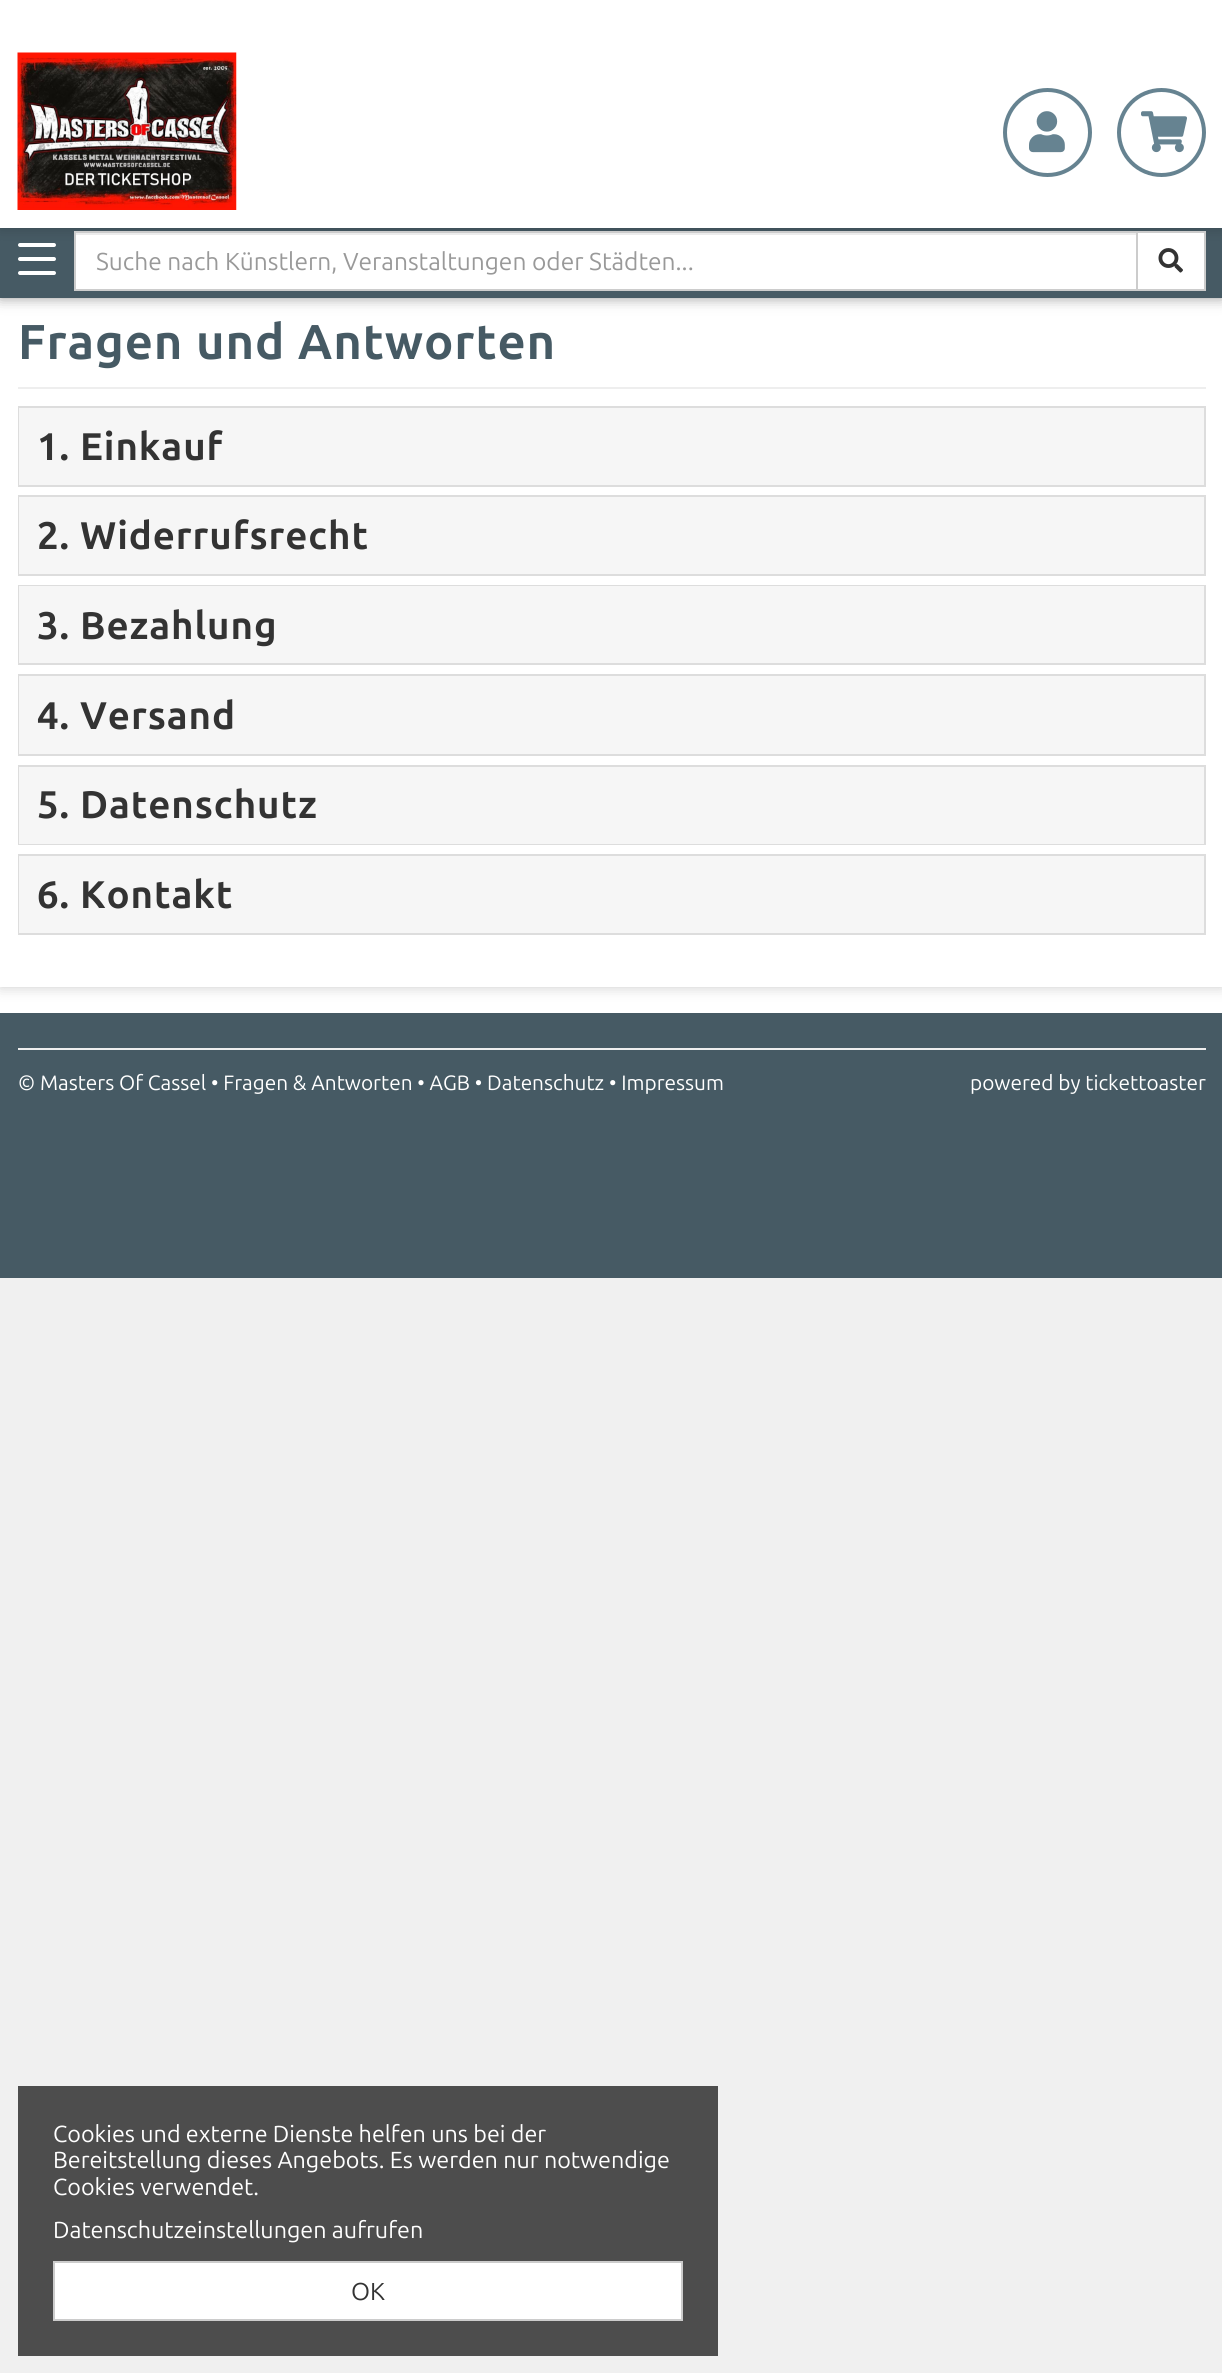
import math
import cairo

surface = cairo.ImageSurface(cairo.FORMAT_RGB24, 1222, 2373)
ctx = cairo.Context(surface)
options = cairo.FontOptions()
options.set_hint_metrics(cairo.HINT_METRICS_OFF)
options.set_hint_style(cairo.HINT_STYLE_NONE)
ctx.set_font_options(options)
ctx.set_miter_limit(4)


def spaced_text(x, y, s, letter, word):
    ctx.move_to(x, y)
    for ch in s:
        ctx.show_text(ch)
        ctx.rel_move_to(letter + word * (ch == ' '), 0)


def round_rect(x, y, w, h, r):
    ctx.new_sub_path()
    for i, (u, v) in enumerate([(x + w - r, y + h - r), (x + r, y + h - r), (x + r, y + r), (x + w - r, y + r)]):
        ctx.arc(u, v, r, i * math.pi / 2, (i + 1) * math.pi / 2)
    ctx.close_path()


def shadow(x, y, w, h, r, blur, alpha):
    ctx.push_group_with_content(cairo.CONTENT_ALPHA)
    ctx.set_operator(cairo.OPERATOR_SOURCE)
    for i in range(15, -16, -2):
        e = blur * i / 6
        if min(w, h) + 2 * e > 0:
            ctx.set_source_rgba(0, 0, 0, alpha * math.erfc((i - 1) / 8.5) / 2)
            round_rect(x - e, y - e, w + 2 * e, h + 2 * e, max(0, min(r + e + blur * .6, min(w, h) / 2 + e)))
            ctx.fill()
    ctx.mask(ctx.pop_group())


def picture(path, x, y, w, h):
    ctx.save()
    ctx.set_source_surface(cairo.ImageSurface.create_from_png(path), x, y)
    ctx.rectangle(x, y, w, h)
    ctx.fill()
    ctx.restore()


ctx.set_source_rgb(0.941, 0.941, 0.941)
ctx.paint()
gradient = cairo.LinearGradient(612, 297, 612, 1013)
gradient.add_color_stop_rgba(0, 0.941, 0.941, 0.941, 1)
gradient.add_color_stop_rgba(1, 1, 1, 1, 1)
ctx.set_source(gradient)
ctx.rectangle(0, 987, 1222, 26)
ctx.fill()
ctx.set_source_rgb(0, 0, 0)
shadow(0, 298, 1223, 689, 0, 7, 0.2)
ctx.set_source_rgb(1, 1, 1)
ctx.rectangle(0, 298, 1222, 689)
ctx.fill()
ctx.set_source_rgb(0, 0, 0)
shadow(0, 228, 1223, 70, 0, 7, 0.4)
ctx.set_source_rgb(0.275, 0.353, 0.392)
ctx.rectangle(0, 228, 1222, 70)
ctx.fill()
ctx.set_source_rgb(1, 1, 1)
round_rect(18, 243, 38, 4, 2)
ctx.fill()
ctx.set_source_rgb(0, 0, 0)
shadow(0, 0, 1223, 228, 0, 7, 0.2)
ctx.set_source_rgb(1, 1, 1)
ctx.rectangle(0, 0, 1222, 228)
ctx.fill()
picture("img1.png", 17, 52, 220, 158)
ctx.arc(1047.5, 132.5, 42.5, 0, 2 * math.pi)
ctx.set_source_rgb(0.4, 0.514, 0.569)
ctx.set_line_width(4)
ctx.stroke()
picture("img2.png", 1029, 111, 36, 42)
ctx.arc(1161.5, 132.5, 42.5, 0, 2 * math.pi)
ctx.stroke()
picture("img3.png", 1141, 111, 46, 42)
ctx.set_source_rgb(1, 1, 1)
round_rect(18, 257, 38, 4, 2)
ctx.fill()
round_rect(18, 271, 38, 4, 2)
ctx.fill()
ctx.rectangle(76, 235, 1060, 54)
ctx.fill()
ctx.set_source_rgb(0.925, 0.925, 0.925)
ctx.rectangle(75, 233, 1061, 2)
ctx.fill()
ctx.rectangle(75, 232, 1062, 58)
ctx.set_source_rgb(0.8, 0.8, 0.8)
ctx.set_line_width(2)
ctx.stroke()
ctx.select_font_face("Ubuntu")
ctx.set_font_size(24.5)
ctx.set_source_rgb(0.6, 0.6, 0.6)
ctx.move_to(96, 270)
ctx.show_text("Suche nach Künstlern, Veranstaltungen oder Städten...")
ctx.set_source_rgb(1, 1, 1)
ctx.rectangle(1137, 232, 68, 58)
ctx.fill_preserve()
ctx.set_source_rgb(0.8, 0.8, 0.8)
ctx.stroke()
picture("img4.png", 1158, 248, 25, 25)
ctx.select_font_face("Ubuntu", cairo.FONT_SLANT_NORMAL, cairo.FONT_WEIGHT_BOLD)
ctx.set_font_size(49)
ctx.set_source_rgb(0.275, 0.353, 0.392)
spaced_text(18, 359, "Fragen und Antworten", 0.9, 0)
ctx.set_source_rgb(0.933, 0.933, 0.933)
ctx.rectangle(18, 387, 1188, 2)
ctx.fill()
ctx.rectangle(19, 407, 1186, 79)
ctx.set_source_rgb(0.867, 0.867, 0.867)
ctx.stroke()
ctx.set_source_rgb(0.961, 0.961, 0.961)
ctx.rectangle(19, 408, 1185, 77)
ctx.fill()
ctx.set_font_size(38.5)
ctx.set_source_rgb(0.2, 0.2, 0.2)
spaced_text(37, 460, "1. Einkauf", 0.9, 0)
ctx.rectangle(19, 496, 1186, 79)
ctx.set_source_rgb(0.867, 0.867, 0.867)
ctx.stroke()
ctx.set_source_rgb(0.961, 0.961, 0.961)
ctx.rectangle(19, 497, 1185, 77)
ctx.fill()
ctx.set_source_rgb(0.2, 0.2, 0.2)
spaced_text(37, 549, "2. Widerrufsrecht", 0.9, 0)
ctx.rectangle(19, 586, 1186, 78)
ctx.set_source_rgb(0.867, 0.867, 0.867)
ctx.stroke()
ctx.set_source_rgb(0.961, 0.961, 0.961)
ctx.rectangle(19, 586, 1185, 77)
ctx.fill()
ctx.set_source_rgb(0.2, 0.2, 0.2)
spaced_text(37, 639, "3. Bezahlung", 0.9, 0)
ctx.rectangle(19, 675, 1186, 80)
ctx.set_source_rgb(0.867, 0.867, 0.867)
ctx.stroke()
ctx.set_source_rgb(0.961, 0.961, 0.961)
ctx.rectangle(19, 676, 1185, 78)
ctx.fill()
ctx.set_source_rgb(0.2, 0.2, 0.2)
spaced_text(37, 729, "4. Versand", 0.9, 0)
ctx.rectangle(19, 766, 1186, 78)
ctx.set_source_rgb(0.867, 0.867, 0.867)
ctx.stroke()
ctx.set_source_rgb(0.961, 0.961, 0.961)
ctx.rectangle(19, 767, 1185, 77)
ctx.fill()
ctx.set_source_rgb(0.2, 0.2, 0.2)
spaced_text(37, 818, "5. Datenschutz", 0.9, 0)
ctx.rectangle(19, 855, 1186, 79)
ctx.set_source_rgb(0.867, 0.867, 0.867)
ctx.stroke()
ctx.set_source_rgb(0.961, 0.961, 0.961)
ctx.rectangle(19, 856, 1185, 77)
ctx.fill()
ctx.set_source_rgb(0.2, 0.2, 0.2)
spaced_text(37, 908, "6. Kontakt", 0.9, 0)
ctx.set_source_rgb(0.275, 0.353, 0.392)
ctx.rectangle(0, 1013, 1222, 265)
ctx.fill()
ctx.set_source_rgb(0.933, 0.933, 0.933)
ctx.rectangle(18, 1048, 1188, 2)
ctx.fill()
ctx.select_font_face("Ubuntu")
ctx.set_font_size(20.8)
ctx.set_source_rgb(1, 1, 1)
ctx.move_to(18, 1090)
ctx.show_text("© Masters Of Cassel • Fragen & Antworten • AGB • Datenschutz • Impressum")
ctx.move_to(970, 1090)
ctx.show_text("powered by tickettoaster")
ctx.set_source_rgb(0.302, 0.302, 0.302)
ctx.rectangle(18, 2086, 700, 270)
ctx.fill()
ctx.set_font_size(23.3)
ctx.set_source_rgb(1, 1, 1)
ctx.move_to(53, 2142)
ctx.show_text("Cookies und externe Dienste helfen uns bei der")
ctx.move_to(53, 2168)
ctx.show_text("Bereitstellung dieses Angebots. Es werden nur notwendige")
ctx.move_to(53, 2195)
ctx.show_text("Cookies verwendet.")
ctx.move_to(53, 2238)
ctx.show_text("Datenschutzeinstellungen aufrufen")
ctx.rectangle(54, 2262, 628, 58)
ctx.fill_preserve()
ctx.set_source_rgb(0.8, 0.8, 0.8)
ctx.stroke()
ctx.set_font_size(24.5)
ctx.set_source_rgb(0.2, 0.2, 0.2)
ctx.move_to(351, 2300)
ctx.show_text("OK")
surface.write_to_png("page.png")
